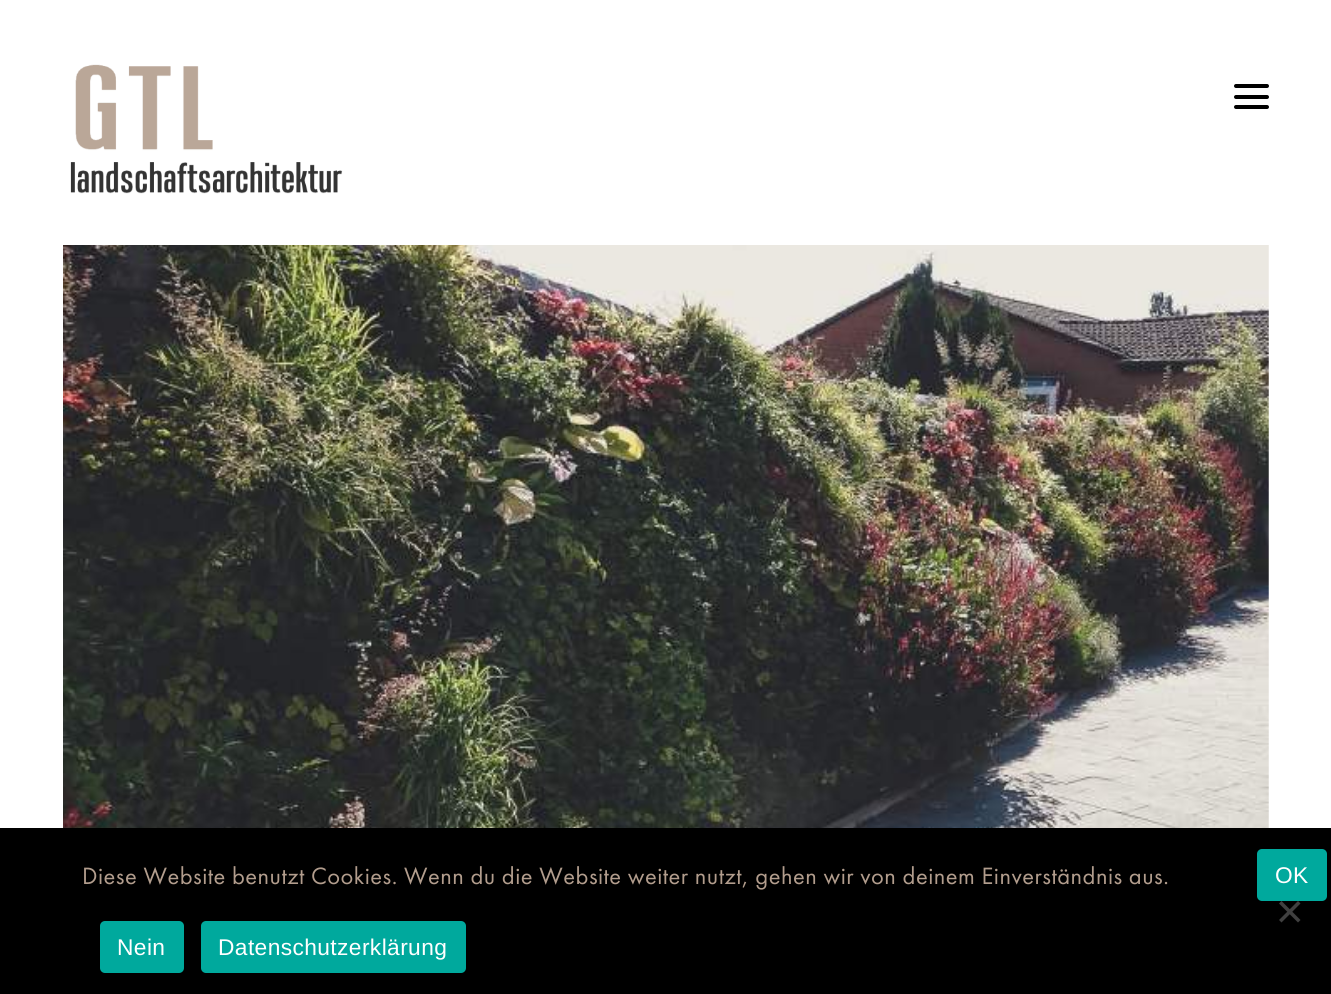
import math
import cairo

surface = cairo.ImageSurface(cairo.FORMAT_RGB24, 1331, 994)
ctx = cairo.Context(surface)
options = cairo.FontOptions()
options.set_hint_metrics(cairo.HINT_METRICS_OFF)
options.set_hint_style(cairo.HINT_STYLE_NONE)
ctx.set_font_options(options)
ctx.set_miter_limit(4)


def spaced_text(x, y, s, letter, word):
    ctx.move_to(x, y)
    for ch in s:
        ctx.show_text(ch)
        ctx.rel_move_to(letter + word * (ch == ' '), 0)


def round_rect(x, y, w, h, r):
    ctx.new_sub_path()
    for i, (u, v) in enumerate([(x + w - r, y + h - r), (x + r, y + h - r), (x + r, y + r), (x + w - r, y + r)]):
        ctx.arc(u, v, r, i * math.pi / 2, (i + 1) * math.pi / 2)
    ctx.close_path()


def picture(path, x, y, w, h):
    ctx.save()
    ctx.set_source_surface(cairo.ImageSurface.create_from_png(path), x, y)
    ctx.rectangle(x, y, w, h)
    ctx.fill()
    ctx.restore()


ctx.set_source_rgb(1, 1, 1)
ctx.paint()
picture("img1.png", 70, 64, 273, 130)
ctx.set_source_rgb(0, 0, 0)
round_rect(1234, 95, 35, 4, 2)
ctx.fill()
round_rect(1234, 84, 35, 4, 2)
ctx.fill()
round_rect(1234, 105, 35, 4, 2)
ctx.fill()
picture("img2.png", 63, 245, 1206, 583)
ctx.rectangle(0, 828, 1331, 166)
ctx.fill()
ctx.select_font_face("Futura PT")
ctx.set_font_size(24.5)
ctx.set_source_rgb(0.698, 0.616, 0.553)
spaced_text(82, 884, "Diese Website benutzt Cookies. Wenn du die Website weiter nutzt, gehen wir von deinem Einverständnis aus.", 0.49, 0)
ctx.set_source_rgb(0, 0.663, 0.616)
round_rect(1257, 849, 70, 52, 5)
ctx.fill()
ctx.select_font_face("Liberation Sans")
ctx.set_font_size(22.75)
ctx.set_source_rgb(1, 1, 1)
spaced_text(1275, 883, "OK", 0.4, 0)
ctx.set_source_rgb(0, 0.663, 0.616)
round_rect(100, 921, 84, 52, 5)
ctx.fill()
ctx.set_source_rgb(1, 1, 1)
spaced_text(117, 955, "Nein", 0.4, 0)
ctx.set_source_rgb(0, 0.663, 0.616)
round_rect(201, 921, 265, 52, 5)
ctx.fill()
ctx.set_source_rgb(1, 1, 1)
spaced_text(218, 955, "Datenschutzerklärung", 0.4, 0)
ctx.set_source_rgb(0.251, 0.251, 0.251)
ctx.new_path()
ctx.move_to(1298, 901)
ctx.line_to(1300.5, 903.5)
ctx.line_to(1281.5, 922.5)
ctx.line_to(1279, 920)
ctx.close_path()
ctx.fill()
ctx.new_path()
ctx.move_to(1279, 903.5)
ctx.line_to(1281.5, 901)
ctx.line_to(1300.5, 920)
ctx.line_to(1298, 922.5)
ctx.close_path()
ctx.fill()
surface.write_to_png("page.png")
